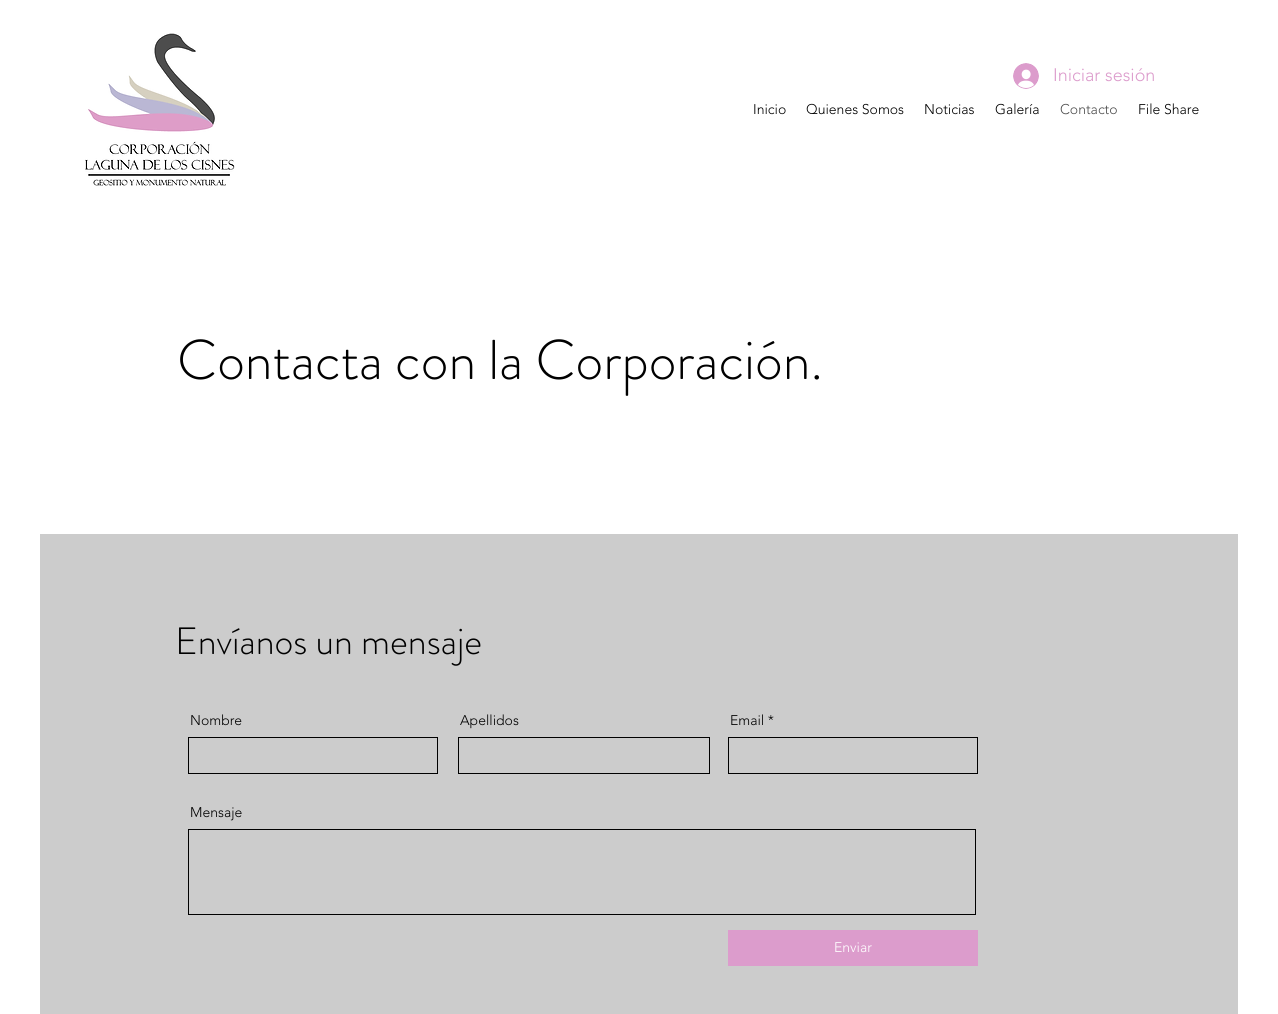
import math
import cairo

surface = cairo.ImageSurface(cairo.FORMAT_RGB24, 1278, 1014)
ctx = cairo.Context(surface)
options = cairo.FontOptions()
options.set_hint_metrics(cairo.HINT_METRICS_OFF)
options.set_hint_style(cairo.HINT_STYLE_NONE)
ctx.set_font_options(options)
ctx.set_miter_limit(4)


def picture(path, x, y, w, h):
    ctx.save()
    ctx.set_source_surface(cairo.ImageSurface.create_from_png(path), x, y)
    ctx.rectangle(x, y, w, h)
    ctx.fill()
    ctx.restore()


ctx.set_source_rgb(1, 1, 1)
ctx.paint()
picture("img1.png", 1013, 63, 26, 26)
ctx.select_font_face("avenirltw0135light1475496 Light")
ctx.set_font_size(18)
ctx.set_source_rgb(0.863, 0.612, 0.8)
ctx.move_to(1053, 81)
ctx.show_text("Iniciar sesión")
picture("img2.png", 85, 33, 150, 153)
ctx.set_font_size(14)
ctx.set_source_rgb(0, 0, 0)
ctx.move_to(753, 114)
ctx.show_text("Inicio")
ctx.move_to(806, 114)
ctx.show_text("Quienes Somos")
ctx.move_to(924, 114)
ctx.show_text("Noticias")
ctx.move_to(995, 114)
ctx.show_text("Galería")
ctx.set_source_rgb(0.298, 0.298, 0.298)
ctx.move_to(1060, 114)
ctx.show_text("Contacto")
ctx.set_source_rgb(0, 0, 0)
ctx.move_to(1138, 114)
ctx.show_text("File Share")
ctx.select_font_face("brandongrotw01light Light")
ctx.set_font_size(56)
ctx.move_to(177, 379)
ctx.show_text("Contacta con la Corporación.")
ctx.set_source_rgb(0.8, 0.8, 0.8)
ctx.rectangle(40, 534, 1198, 480)
ctx.fill()
ctx.set_font_size(38)
ctx.set_source_rgb(0, 0, 0)
ctx.move_to(175, 654)
ctx.show_text("Envíanos un mensaje")
ctx.select_font_face("avenirltw0135light1475496 Light")
ctx.set_font_size(14)
ctx.move_to(190, 725)
ctx.show_text("Nombre")
ctx.rectangle(188.5, 737.5, 249, 36)
ctx.set_line_width(1)
ctx.stroke()
ctx.move_to(460, 725)
ctx.show_text("Apellidos")
ctx.rectangle(458.5, 737.5, 251, 36)
ctx.stroke()
ctx.move_to(730, 725)
ctx.show_text("Email *")
ctx.rectangle(728.5, 737.5, 249, 36)
ctx.stroke()
ctx.move_to(190, 817)
ctx.show_text("Mensaje")
ctx.rectangle(188.5, 829.5, 787, 85)
ctx.stroke()
ctx.set_source_rgb(0.863, 0.612, 0.8)
ctx.rectangle(728, 930, 250, 36)
ctx.fill()
ctx.set_source_rgb(1, 1, 1)
ctx.move_to(834, 952)
ctx.show_text("Enviar")
surface.write_to_png("page.png")
